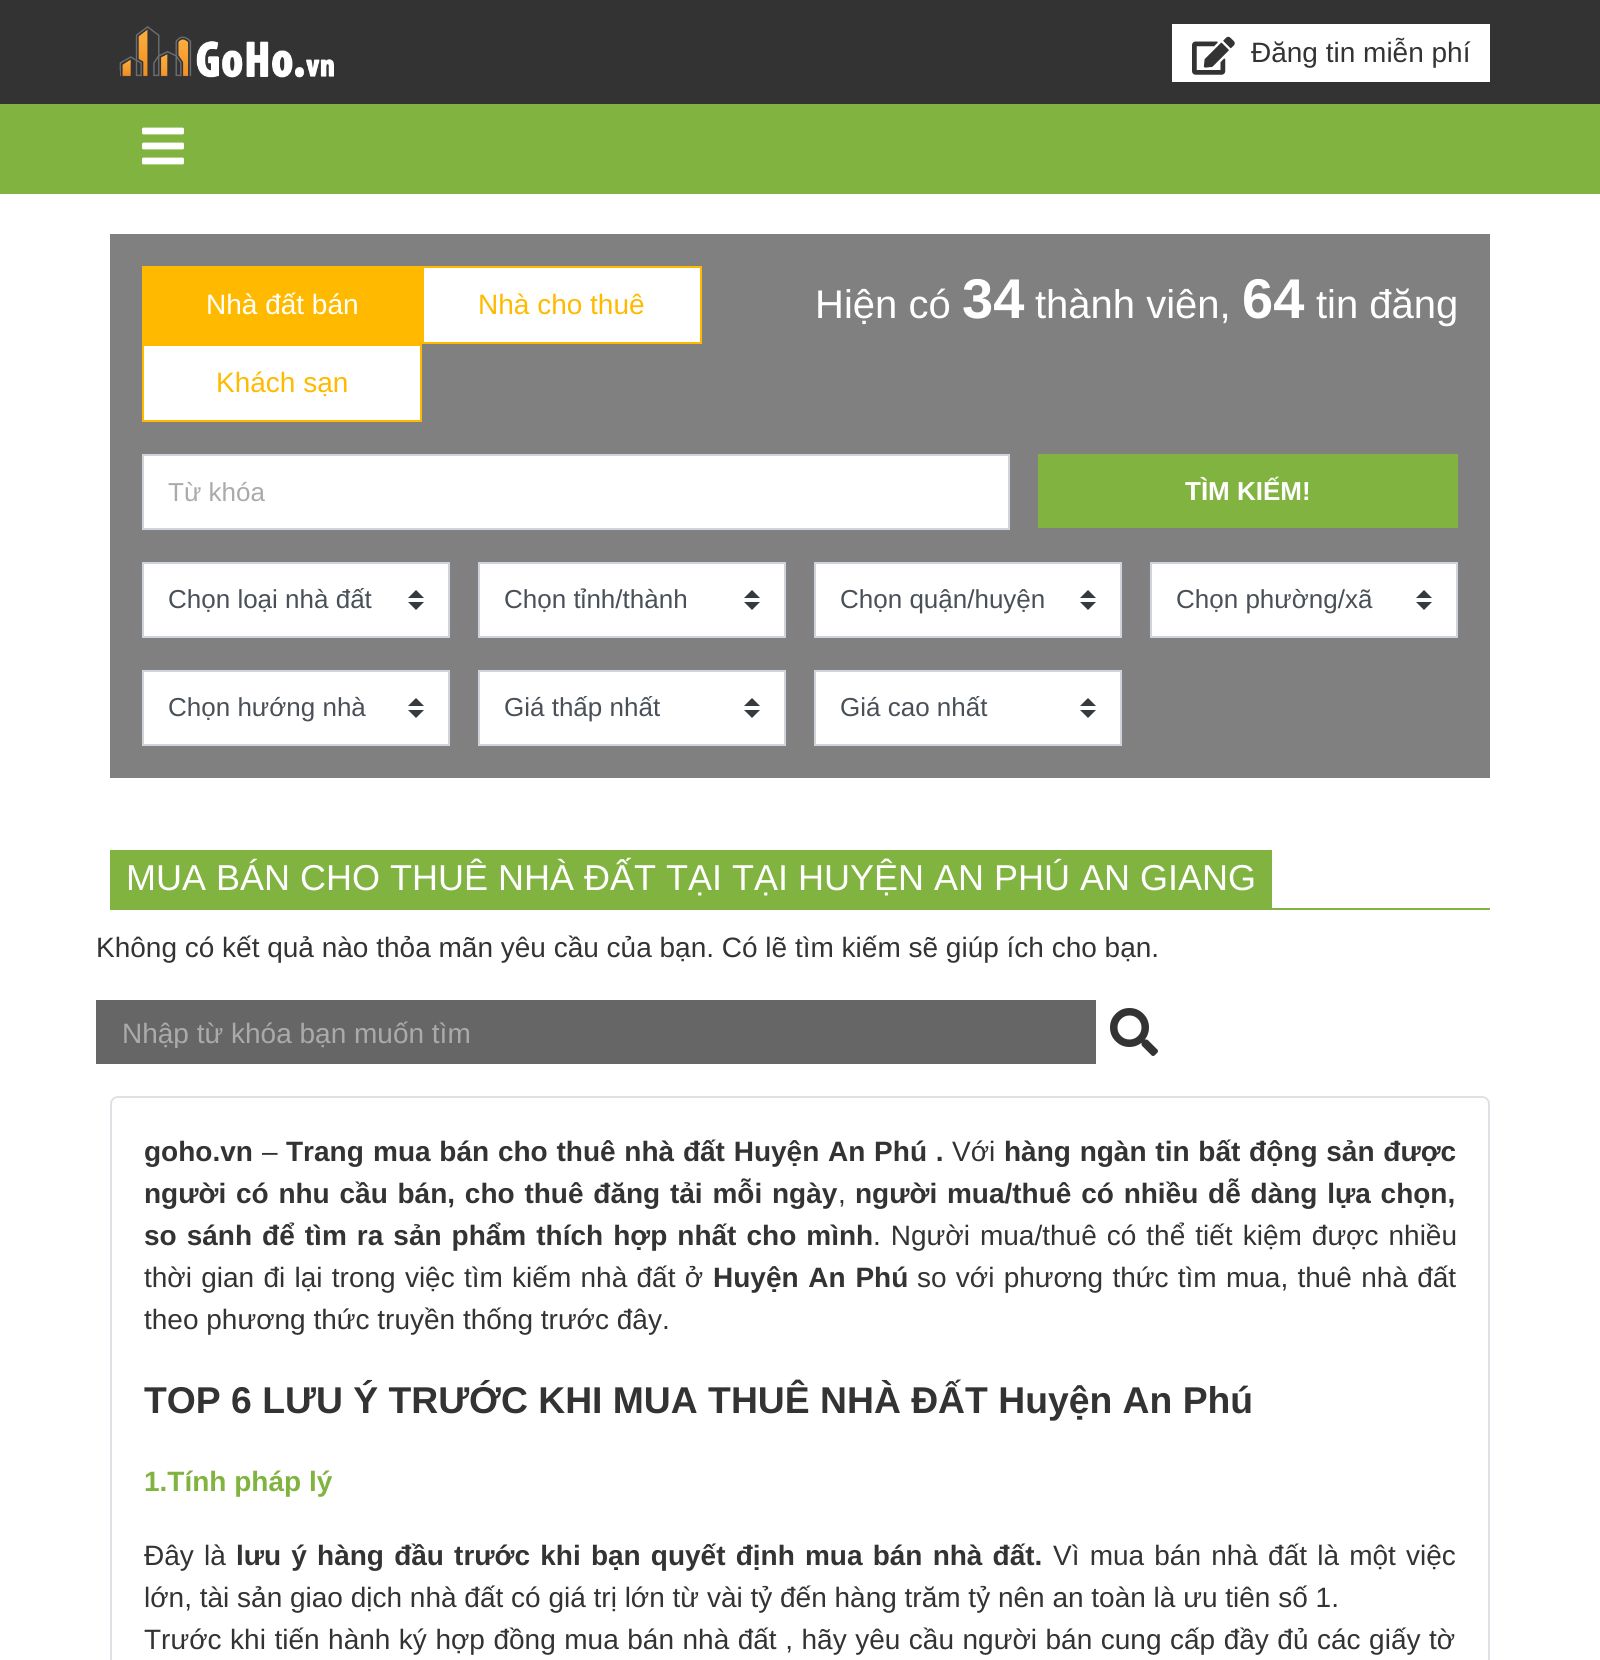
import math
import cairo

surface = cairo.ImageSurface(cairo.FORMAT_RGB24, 1600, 1660)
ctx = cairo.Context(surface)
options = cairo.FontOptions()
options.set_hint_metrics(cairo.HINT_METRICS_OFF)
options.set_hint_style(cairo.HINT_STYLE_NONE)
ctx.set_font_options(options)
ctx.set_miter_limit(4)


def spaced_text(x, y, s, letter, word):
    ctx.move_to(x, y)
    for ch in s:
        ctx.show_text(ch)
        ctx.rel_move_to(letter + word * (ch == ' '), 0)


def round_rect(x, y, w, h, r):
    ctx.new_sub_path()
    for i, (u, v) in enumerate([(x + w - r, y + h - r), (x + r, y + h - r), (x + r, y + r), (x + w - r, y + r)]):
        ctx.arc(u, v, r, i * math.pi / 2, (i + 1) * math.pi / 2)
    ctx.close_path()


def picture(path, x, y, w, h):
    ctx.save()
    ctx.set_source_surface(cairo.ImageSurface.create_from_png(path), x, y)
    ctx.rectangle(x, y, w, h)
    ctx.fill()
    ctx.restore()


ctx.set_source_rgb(1, 1, 1)
ctx.paint()
ctx.set_source_rgb(0.2, 0.2, 0.2)
ctx.rectangle(0, 0, 1600, 104)
ctx.fill()
picture("img1.png", 119, 26, 215, 52)
ctx.set_source_rgb(1, 1, 1)
ctx.rectangle(1172, 24, 318, 58)
ctx.fill()
picture("img2.png", 1192, 36, 43, 39)
ctx.select_font_face("Liberation Sans")
ctx.set_font_size(28)
ctx.set_source_rgb(0.2, 0.2, 0.2)
ctx.move_to(1251, 62)
ctx.show_text("Đăng tin miễn phí")
ctx.set_source_rgb(0.506, 0.702, 0.255)
ctx.rectangle(0, 104, 1600, 90)
ctx.fill()
picture("img3.png", 142, 127, 42, 38)
ctx.set_source_rgb(0.502, 0.502, 0.502)
ctx.rectangle(110, 234, 1380, 544)
ctx.fill()
ctx.set_source_rgb(1, 0.729, 0)
ctx.rectangle(142, 266, 280, 78)
ctx.fill()
ctx.set_source_rgb(1, 1, 1)
ctx.move_to(206, 314)
ctx.show_text("Nhà đất bán")
ctx.rectangle(423, 267, 278, 76)
ctx.fill_preserve()
ctx.set_source_rgb(1, 0.729, 0)
ctx.stroke()
ctx.move_to(478, 314)
ctx.show_text("Nhà cho thuê")
ctx.set_source_rgb(1, 1, 1)
ctx.rectangle(143, 345, 278, 76)
ctx.fill_preserve()
ctx.set_source_rgb(1, 0.729, 0)
ctx.stroke()
ctx.move_to(216, 392)
ctx.show_text("Khách sạn")
ctx.set_font_size(40)
ctx.set_source_rgb(1, 1, 1)
ctx.move_to(815, 318)
ctx.show_text("Hiện có")
ctx.select_font_face("Liberation Sans", cairo.FONT_SLANT_NORMAL, cairo.FONT_WEIGHT_BOLD)
ctx.set_font_size(56)
ctx.move_to(962, 318)
ctx.show_text("34")
ctx.select_font_face("Liberation Sans")
ctx.set_font_size(40)
ctx.move_to(1035, 318)
ctx.show_text("thành viên,")
ctx.select_font_face("Liberation Sans", cairo.FONT_SLANT_NORMAL, cairo.FONT_WEIGHT_BOLD)
ctx.set_font_size(56)
ctx.move_to(1242, 318)
ctx.show_text("64")
ctx.select_font_face("Liberation Sans")
ctx.set_font_size(40)
ctx.move_to(1316, 318)
ctx.show_text("tin đăng")
ctx.rectangle(143, 455, 866, 74)
ctx.fill_preserve()
ctx.set_source_rgb(0.808, 0.831, 0.855)
ctx.stroke()
ctx.set_font_size(26)
ctx.set_source_rgb(0.667, 0.667, 0.667)
ctx.move_to(168, 501)
ctx.show_text("Từ khóa")
ctx.set_source_rgb(0.506, 0.702, 0.255)
ctx.rectangle(1038, 454, 420, 74)
ctx.fill()
ctx.select_font_face("Liberation Sans", cairo.FONT_SLANT_NORMAL, cairo.FONT_WEIGHT_BOLD)
ctx.set_source_rgb(1, 1, 1)
ctx.move_to(1185, 500)
ctx.show_text("TÌM KIẾM!")
ctx.rectangle(144, 564, 304, 72)
ctx.fill()
ctx.set_source_rgb(0.204, 0.227, 0.251)
ctx.new_path()
ctx.move_to(416, 590)
ctx.line_to(408, 598)
ctx.line_to(424, 598)
ctx.close_path()
ctx.move_to(416, 610)
ctx.line_to(408, 602)
ctx.line_to(424, 602)
ctx.close_path()
ctx.fill()
ctx.rectangle(143, 563, 306, 74)
ctx.set_source_rgb(0.808, 0.831, 0.855)
ctx.stroke()
ctx.select_font_face("Liberation Sans")
ctx.set_source_rgb(0.286, 0.314, 0.341)
ctx.move_to(168, 608)
ctx.show_text("Chọn loại nhà đất")
ctx.set_source_rgb(1, 1, 1)
ctx.rectangle(480, 564, 304, 72)
ctx.fill()
ctx.set_source_rgb(0.204, 0.227, 0.251)
ctx.new_path()
ctx.move_to(752, 590)
ctx.line_to(744, 598)
ctx.line_to(760, 598)
ctx.close_path()
ctx.move_to(752, 610)
ctx.line_to(744, 602)
ctx.line_to(760, 602)
ctx.close_path()
ctx.fill()
ctx.rectangle(479, 563, 306, 74)
ctx.set_source_rgb(0.808, 0.831, 0.855)
ctx.stroke()
ctx.set_source_rgb(0.286, 0.314, 0.341)
ctx.move_to(504, 608)
ctx.show_text("Chọn tỉnh/thành")
ctx.set_source_rgb(1, 1, 1)
ctx.rectangle(816, 564, 304, 72)
ctx.fill()
ctx.set_source_rgb(0.204, 0.227, 0.251)
ctx.new_path()
ctx.move_to(1088, 590)
ctx.line_to(1080, 598)
ctx.line_to(1096, 598)
ctx.close_path()
ctx.move_to(1088, 610)
ctx.line_to(1080, 602)
ctx.line_to(1096, 602)
ctx.close_path()
ctx.fill()
ctx.rectangle(815, 563, 306, 74)
ctx.set_source_rgb(0.808, 0.831, 0.855)
ctx.stroke()
ctx.set_source_rgb(0.286, 0.314, 0.341)
ctx.move_to(840, 608)
ctx.show_text("Chọn quận/huyện")
ctx.set_source_rgb(1, 1, 1)
ctx.rectangle(1152, 564, 304, 72)
ctx.fill()
ctx.set_source_rgb(0.204, 0.227, 0.251)
ctx.new_path()
ctx.move_to(1424, 590)
ctx.line_to(1416, 598)
ctx.line_to(1432, 598)
ctx.close_path()
ctx.move_to(1424, 610)
ctx.line_to(1416, 602)
ctx.line_to(1432, 602)
ctx.close_path()
ctx.fill()
ctx.rectangle(1151, 563, 306, 74)
ctx.set_source_rgb(0.808, 0.831, 0.855)
ctx.stroke()
ctx.set_source_rgb(0.286, 0.314, 0.341)
ctx.move_to(1176, 608)
ctx.show_text("Chọn phường/xã")
ctx.set_source_rgb(1, 1, 1)
ctx.rectangle(144, 672, 304, 72)
ctx.fill()
ctx.set_source_rgb(0.204, 0.227, 0.251)
ctx.new_path()
ctx.move_to(416, 698)
ctx.line_to(408, 706)
ctx.line_to(424, 706)
ctx.close_path()
ctx.move_to(416, 718)
ctx.line_to(408, 710)
ctx.line_to(424, 710)
ctx.close_path()
ctx.fill()
ctx.rectangle(143, 671, 306, 74)
ctx.set_source_rgb(0.808, 0.831, 0.855)
ctx.stroke()
ctx.set_source_rgb(0.286, 0.314, 0.341)
ctx.move_to(168, 716)
ctx.show_text("Chọn hướng nhà")
ctx.set_source_rgb(1, 1, 1)
ctx.rectangle(480, 672, 304, 72)
ctx.fill()
ctx.set_source_rgb(0.204, 0.227, 0.251)
ctx.new_path()
ctx.move_to(752, 698)
ctx.line_to(744, 706)
ctx.line_to(760, 706)
ctx.close_path()
ctx.move_to(752, 718)
ctx.line_to(744, 710)
ctx.line_to(760, 710)
ctx.close_path()
ctx.fill()
ctx.rectangle(479, 671, 306, 74)
ctx.set_source_rgb(0.808, 0.831, 0.855)
ctx.stroke()
ctx.set_source_rgb(0.286, 0.314, 0.341)
ctx.move_to(504, 716)
ctx.show_text("Giá thấp nhất")
ctx.set_source_rgb(1, 1, 1)
ctx.rectangle(816, 672, 304, 72)
ctx.fill()
ctx.set_source_rgb(0.204, 0.227, 0.251)
ctx.new_path()
ctx.move_to(1088, 698)
ctx.line_to(1080, 706)
ctx.line_to(1096, 706)
ctx.close_path()
ctx.move_to(1088, 718)
ctx.line_to(1080, 710)
ctx.line_to(1096, 710)
ctx.close_path()
ctx.fill()
ctx.rectangle(815, 671, 306, 74)
ctx.set_source_rgb(0.808, 0.831, 0.855)
ctx.stroke()
ctx.set_source_rgb(0.286, 0.314, 0.341)
ctx.move_to(840, 716)
ctx.show_text("Giá cao nhất")
ctx.set_source_rgb(0.506, 0.702, 0.255)
ctx.rectangle(110, 908, 1380, 2)
ctx.fill()
ctx.rectangle(110, 850, 1162, 58)
ctx.fill()
ctx.set_font_size(36)
ctx.set_source_rgb(1, 1, 1)
ctx.move_to(126, 890)
ctx.show_text("MUA BÁN CHO THUÊ NHÀ ĐẤT TẠI TẠI HUYỆN AN PHÚ AN GIANG")
ctx.set_font_size(28)
ctx.set_source_rgb(0.2, 0.2, 0.2)
ctx.move_to(96, 957)
ctx.show_text("Không có kết quả nào thỏa mãn yêu cầu của bạn. Có lẽ tìm kiếm sẽ giúp ích cho bạn.")
ctx.set_source_rgb(0.4, 0.4, 0.4)
ctx.rectangle(96, 1000, 1000, 64)
ctx.fill()
ctx.save()
ctx.rectangle(122, 1016, 948, 32)
ctx.clip()
ctx.set_source_rgb(0.667, 0.667, 0.667)
ctx.move_to(122, 1043)
ctx.show_text("Nhập từ khóa bạn muốn tìm")
ctx.restore()
picture("img4.png", 1110, 1008, 48, 48)
round_rect(111, 1097, 1378, 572, 7)
ctx.set_source_rgb(0.871, 0.886, 0.902)
ctx.stroke()
ctx.select_font_face("Liberation Sans", cairo.FONT_SLANT_NORMAL, cairo.FONT_WEIGHT_BOLD)
ctx.set_source_rgb(0.2, 0.2, 0.2)
ctx.move_to(144, 1161)
ctx.show_text("goho.vn")
ctx.select_font_face("Liberation Sans")
ctx.move_to(262, 1161)
ctx.show_text("–")
ctx.select_font_face("Liberation Sans", cairo.FONT_SLANT_NORMAL, cairo.FONT_WEIGHT_BOLD)
ctx.move_to(286, 1161)
ctx.show_text("Trang")
spaced_text(373, 1161, "mua bán cho thuê nhà đất Huyện An Phú .", 0, 1)
ctx.select_font_face("Liberation Sans")
ctx.move_to(952, 1161)
ctx.show_text("Với")
ctx.select_font_face("Liberation Sans", cairo.FONT_SLANT_NORMAL, cairo.FONT_WEIGHT_BOLD)
spaced_text(1004, 1161, "hàng ngàn tin bất động sản được", 0, 1)
spaced_text(144, 1203, "người có nhu cầu bán, cho thuê đăng tải mỗi ngày", 0, 2)
ctx.select_font_face("Liberation Sans")
ctx.move_to(838, 1203)
ctx.show_text(",")
ctx.select_font_face("Liberation Sans", cairo.FONT_SLANT_NORMAL, cairo.FONT_WEIGHT_BOLD)
spaced_text(855, 1203, "người mua/thuê có nhiều dễ dàng lựa chọn,", 0, 2)
spaced_text(144, 1245, "so sánh để tìm ra sản phẩm thích hợp nhất cho mình", 0, 2.25)
ctx.select_font_face("Liberation Sans")
spaced_text(873, 1245, ". Người mua/thuê có thể tiết kiệm được nhiều", 0, 2.25)
spaced_text(144, 1287, "thời gian đi lại trong việc tìm kiếm nhà đất ở", 0, 1.5)
ctx.select_font_face("Liberation Sans", cairo.FONT_SLANT_NORMAL, cairo.FONT_WEIGHT_BOLD)
spaced_text(713, 1287, "Huyện An Phú", 0, 2)
ctx.select_font_face("Liberation Sans")
spaced_text(917, 1287, "so với phương thức tìm mua, thuê nhà đất", 0, 1.5)
ctx.move_to(144, 1329)
ctx.show_text("theo phương thức truyền thống trước đây.")
ctx.select_font_face("Liberation Sans", cairo.FONT_SLANT_NORMAL, cairo.FONT_WEIGHT_BOLD)
ctx.set_font_size(37.3)
ctx.move_to(144, 1413)
ctx.show_text("TOP 6 LƯU Ý TRƯỚC KHI MUA THUÊ NHÀ ĐẤT Huyện An Phú")
ctx.set_font_size(28)
ctx.set_source_rgb(0.506, 0.702, 0.255)
ctx.move_to(144, 1491)
ctx.show_text("1.Tính pháp lý")
ctx.select_font_face("Liberation Sans")
ctx.set_source_rgb(0.2, 0.2, 0.2)
spaced_text(144, 1565, "Đây là", 0, 2.4)
ctx.select_font_face("Liberation Sans", cairo.FONT_SLANT_NORMAL, cairo.FONT_WEIGHT_BOLD)
spaced_text(236, 1565, "lưu ý hàng đầu trước khi bạn quyết định mua bán nhà đất.", 0, 2.4)
ctx.select_font_face("Liberation Sans")
spaced_text(1053, 1565, "Vì mua bán nhà đất là một việc", 0, 2.4)
ctx.move_to(144, 1607)
ctx.show_text("lớn, tài sản giao dịch nhà đất có giá trị lớn từ vài tỷ đến hàng trăm tỷ nên an toàn là ưu tiên số 1.")
spaced_text(144, 1649, "Trước khi tiến hành ký hợp đồng mua bán nhà đất , hãy yêu cầu người bán cung cấp đầy đủ các giấy tờ", 0, 0.75)
surface.write_to_png("page.png")
